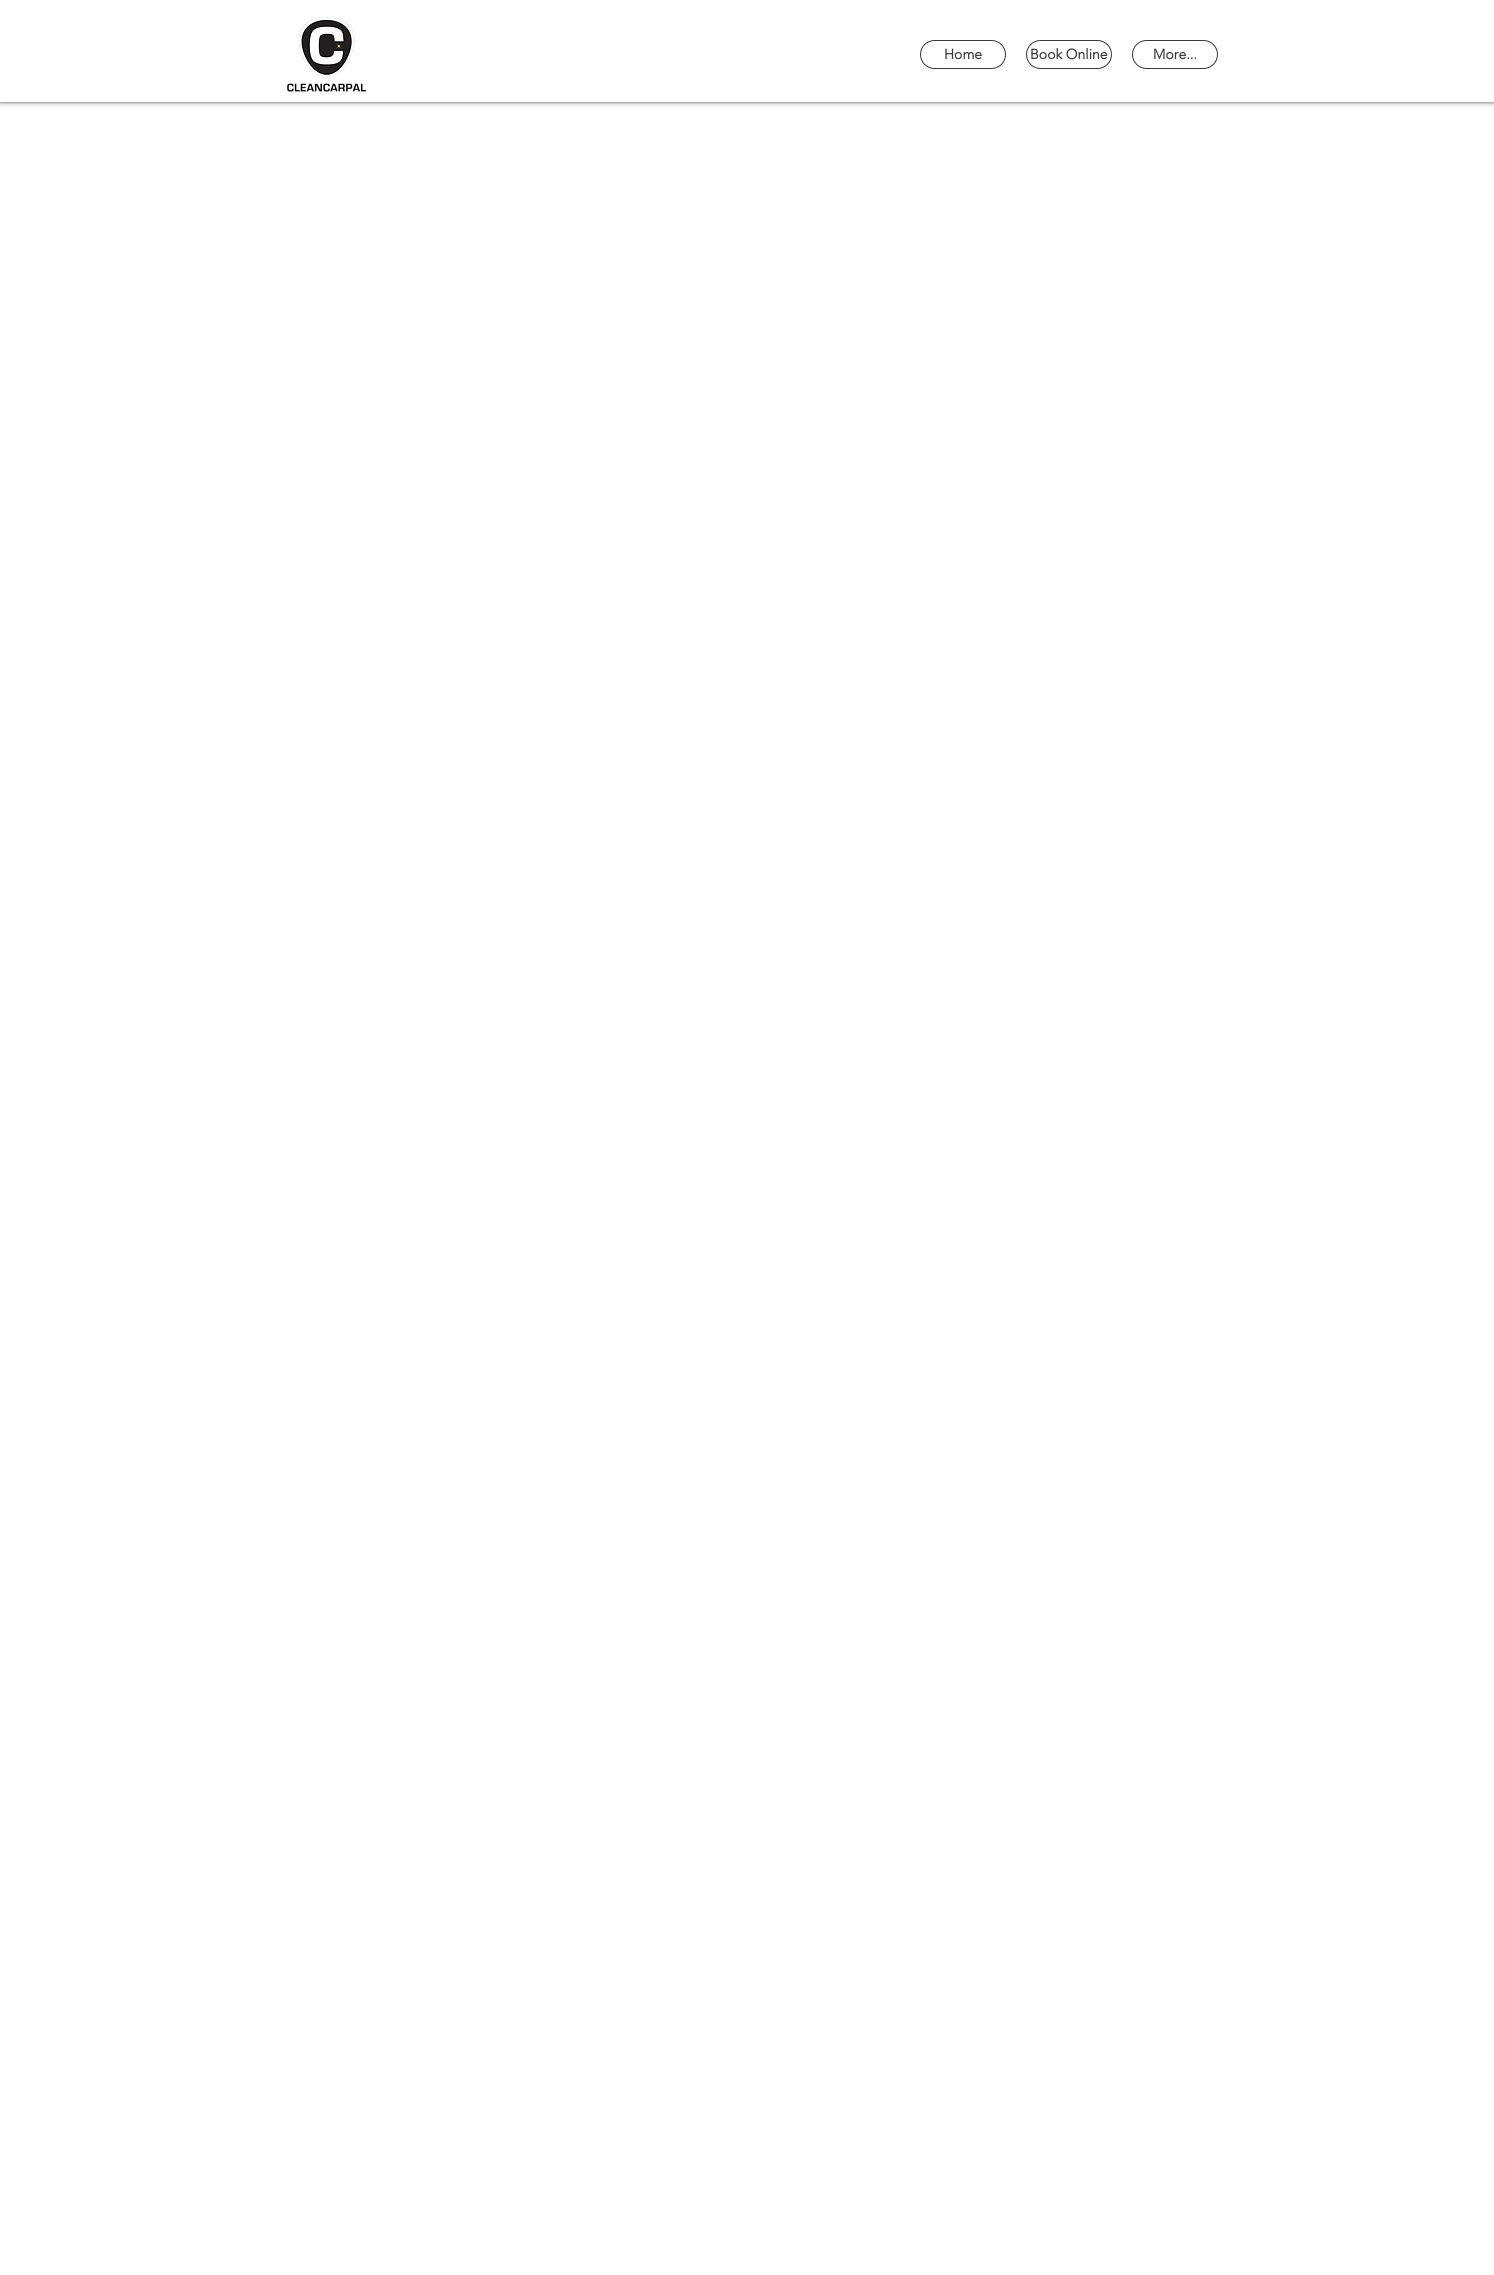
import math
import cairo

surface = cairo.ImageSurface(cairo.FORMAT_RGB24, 1494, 2275)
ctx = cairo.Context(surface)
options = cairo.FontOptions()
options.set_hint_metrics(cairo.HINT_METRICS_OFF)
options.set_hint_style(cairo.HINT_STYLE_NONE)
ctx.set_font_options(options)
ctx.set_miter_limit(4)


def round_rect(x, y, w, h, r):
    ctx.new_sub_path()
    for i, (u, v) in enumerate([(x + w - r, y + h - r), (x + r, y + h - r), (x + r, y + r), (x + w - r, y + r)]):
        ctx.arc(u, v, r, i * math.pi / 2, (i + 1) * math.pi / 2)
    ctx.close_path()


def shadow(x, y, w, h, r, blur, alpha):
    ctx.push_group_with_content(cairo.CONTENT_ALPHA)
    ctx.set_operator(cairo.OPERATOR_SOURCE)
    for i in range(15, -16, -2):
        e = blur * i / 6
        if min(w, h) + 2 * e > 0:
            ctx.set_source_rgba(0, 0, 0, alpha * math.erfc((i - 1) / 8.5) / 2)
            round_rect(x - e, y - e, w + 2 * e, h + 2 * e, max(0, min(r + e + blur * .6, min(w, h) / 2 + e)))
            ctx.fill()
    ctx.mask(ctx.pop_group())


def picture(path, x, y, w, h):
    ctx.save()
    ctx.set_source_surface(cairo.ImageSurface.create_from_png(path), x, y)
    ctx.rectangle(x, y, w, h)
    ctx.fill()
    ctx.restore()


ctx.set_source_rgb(1, 1, 1)
ctx.paint()
ctx.set_source_rgb(0, 0, 0)
shadow(0, 0, 1494, 102, 0, 2.5, 0.7)
ctx.set_source_rgb(1, 1, 1)
ctx.rectangle(0, 0, 1494, 102)
ctx.fill()
picture("img1.png", 287, 17, 80, 75)
round_rect(920.5, 40.5, 85, 28, 14)
ctx.set_source_rgb(0.22, 0.22, 0.22)
ctx.set_line_width(1)
ctx.stroke()
ctx.select_font_face("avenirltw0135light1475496", cairo.FONT_SLANT_NORMAL, cairo.FONT_WEIGHT_BOLD)
ctx.set_font_size(14)
ctx.move_to(944, 59)
ctx.show_text("Home")
round_rect(1026.5, 40.5, 85, 28, 14)
ctx.stroke()
ctx.move_to(1030, 59)
ctx.show_text("Book Online")
round_rect(1132.5, 40.5, 85, 28, 14)
ctx.stroke()
ctx.move_to(1153, 59)
ctx.show_text("More...")
surface.write_to_png("page.png")
